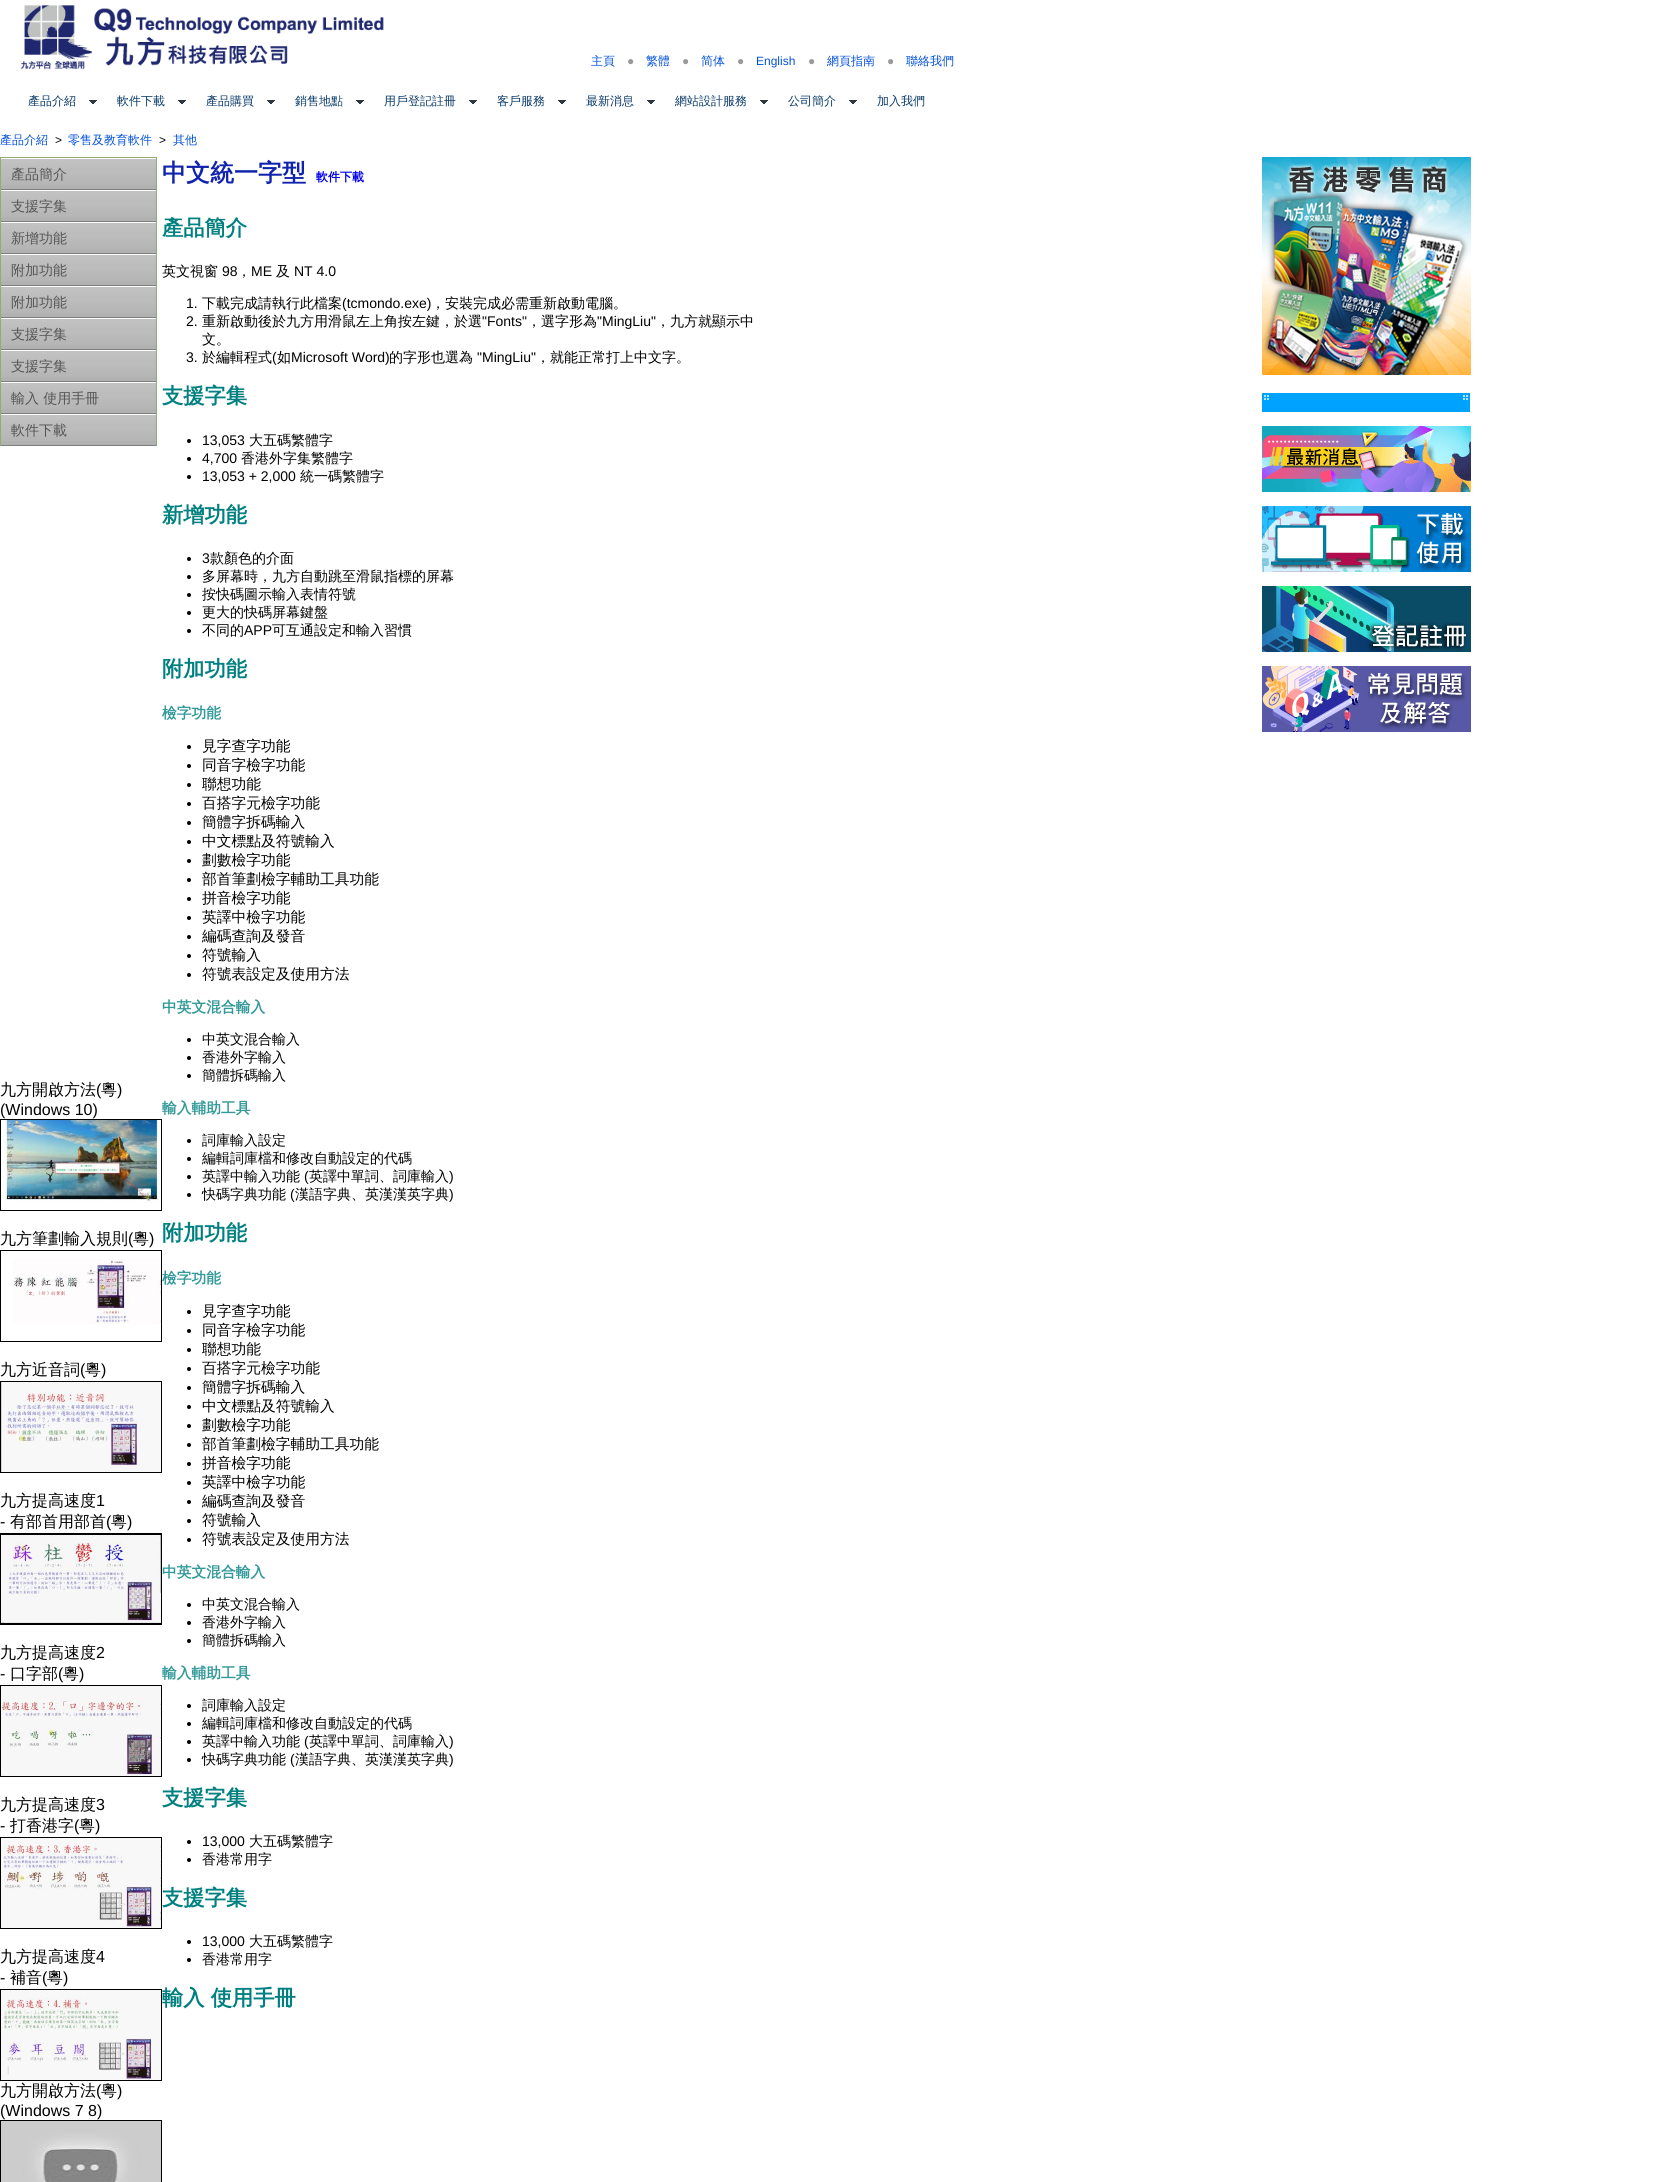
import math
import cairo

surface = cairo.ImageSurface(cairo.FORMAT_RGB24, 1653, 2182)
ctx = cairo.Context(surface)
options = cairo.FontOptions()
options.set_hint_metrics(cairo.HINT_METRICS_OFF)
options.set_hint_style(cairo.HINT_STYLE_NONE)
ctx.set_font_options(options)
ctx.set_miter_limit(4)


def picture(path, x, y, w, h):
    ctx.save()
    ctx.set_source_surface(cairo.ImageSurface.create_from_png(path), x, y)
    ctx.rectangle(x, y, w, h)
    ctx.fill()
    ctx.restore()


ctx.set_source_rgb(1, 1, 1)
ctx.paint()
picture("img1.png", 21, 5, 363, 65)
ctx.select_font_face("WenQuanYi Zen Hei Medium")
ctx.set_font_size(12)
ctx.set_source_rgb(0.016, 0.318, 0.859)
ctx.move_to(591, 65)
ctx.show_text("主頁")
ctx.select_font_face("Liberation Sans")
ctx.set_source_rgb(0.6, 0.6, 0.6)
ctx.move_to(627, 65)
ctx.show_text("●")
ctx.select_font_face("WenQuanYi Zen Hei Medium")
ctx.set_source_rgb(0.016, 0.318, 0.859)
ctx.move_to(646, 65)
ctx.show_text("繁體")
ctx.select_font_face("Liberation Sans")
ctx.set_source_rgb(0.6, 0.6, 0.6)
ctx.move_to(682, 65)
ctx.show_text("●")
ctx.select_font_face("WenQuanYi Zen Hei Medium")
ctx.set_source_rgb(0.016, 0.318, 0.859)
ctx.move_to(701, 65)
ctx.show_text("简体")
ctx.select_font_face("Liberation Sans")
ctx.set_source_rgb(0.6, 0.6, 0.6)
ctx.move_to(737, 65)
ctx.show_text("●")
ctx.set_source_rgb(0.016, 0.318, 0.859)
ctx.move_to(756, 65)
ctx.show_text("English")
ctx.set_source_rgb(0.6, 0.6, 0.6)
ctx.move_to(808, 65)
ctx.show_text("●")
ctx.select_font_face("WenQuanYi Zen Hei Medium")
ctx.set_source_rgb(0.016, 0.318, 0.859)
ctx.move_to(827, 65)
ctx.show_text("網頁指南")
ctx.select_font_face("Liberation Sans")
ctx.set_source_rgb(0.6, 0.6, 0.6)
ctx.move_to(887, 65)
ctx.show_text("●")
ctx.select_font_face("WenQuanYi Zen Hei Medium")
ctx.set_source_rgb(0.016, 0.318, 0.859)
ctx.move_to(906, 65)
ctx.show_text("聯絡我們")
ctx.set_source_rgb(0.035, 0.224, 0.408)
ctx.move_to(28, 105)
ctx.show_text("產品介紹")
ctx.set_source_rgb(0.184, 0.22, 0.259)
ctx.rectangle(89, 100, 8, 1)
ctx.fill()
ctx.rectangle(90, 101, 6, 1)
ctx.fill()
ctx.rectangle(91, 102, 4, 1)
ctx.fill()
ctx.rectangle(92, 103, 2, 1)
ctx.fill()
ctx.set_source_rgb(0.035, 0.224, 0.408)
ctx.move_to(117, 105)
ctx.show_text("軟件下載")
ctx.set_source_rgb(0.184, 0.22, 0.259)
ctx.rectangle(178, 100, 8, 1)
ctx.fill()
ctx.rectangle(179, 101, 6, 1)
ctx.fill()
ctx.rectangle(180, 102, 4, 1)
ctx.fill()
ctx.rectangle(181, 103, 2, 1)
ctx.fill()
ctx.set_source_rgb(0.035, 0.224, 0.408)
ctx.move_to(206, 105)
ctx.show_text("產品購買")
ctx.set_source_rgb(0.184, 0.22, 0.259)
ctx.rectangle(267, 100, 8, 1)
ctx.fill()
ctx.rectangle(268, 101, 6, 1)
ctx.fill()
ctx.rectangle(269, 102, 4, 1)
ctx.fill()
ctx.rectangle(270, 103, 2, 1)
ctx.fill()
ctx.set_source_rgb(0.035, 0.224, 0.408)
ctx.move_to(295, 105)
ctx.show_text("銷售地點")
ctx.set_source_rgb(0.184, 0.22, 0.259)
ctx.rectangle(356, 100, 8, 1)
ctx.fill()
ctx.rectangle(357, 101, 6, 1)
ctx.fill()
ctx.rectangle(358, 102, 4, 1)
ctx.fill()
ctx.rectangle(359, 103, 2, 1)
ctx.fill()
ctx.set_source_rgb(0.035, 0.224, 0.408)
ctx.move_to(384, 105)
ctx.show_text("用戶登記註冊")
ctx.set_source_rgb(0.184, 0.22, 0.259)
ctx.rectangle(469, 100, 8, 1)
ctx.fill()
ctx.rectangle(470, 101, 6, 1)
ctx.fill()
ctx.rectangle(471, 102, 4, 1)
ctx.fill()
ctx.rectangle(472, 103, 2, 1)
ctx.fill()
ctx.set_source_rgb(0.035, 0.224, 0.408)
ctx.move_to(497, 105)
ctx.show_text("客戶服務")
ctx.set_source_rgb(0.184, 0.22, 0.259)
ctx.rectangle(558, 100, 8, 1)
ctx.fill()
ctx.rectangle(559, 101, 6, 1)
ctx.fill()
ctx.rectangle(560, 102, 4, 1)
ctx.fill()
ctx.rectangle(561, 103, 2, 1)
ctx.fill()
ctx.set_source_rgb(0.035, 0.224, 0.408)
ctx.move_to(586, 105)
ctx.show_text("最新消息")
ctx.set_source_rgb(0.184, 0.22, 0.259)
ctx.rectangle(647, 100, 8, 1)
ctx.fill()
ctx.rectangle(648, 101, 6, 1)
ctx.fill()
ctx.rectangle(649, 102, 4, 1)
ctx.fill()
ctx.rectangle(650, 103, 2, 1)
ctx.fill()
ctx.set_source_rgb(0.035, 0.224, 0.408)
ctx.move_to(675, 105)
ctx.show_text("網站設計服務")
ctx.set_source_rgb(0.184, 0.22, 0.259)
ctx.rectangle(760, 100, 8, 1)
ctx.fill()
ctx.rectangle(761, 101, 6, 1)
ctx.fill()
ctx.rectangle(762, 102, 4, 1)
ctx.fill()
ctx.rectangle(763, 103, 2, 1)
ctx.fill()
ctx.set_source_rgb(0.035, 0.224, 0.408)
ctx.move_to(788, 105)
ctx.show_text("公司簡介")
ctx.set_source_rgb(0.184, 0.22, 0.259)
ctx.rectangle(849, 100, 8, 1)
ctx.fill()
ctx.rectangle(850, 101, 6, 1)
ctx.fill()
ctx.rectangle(851, 102, 4, 1)
ctx.fill()
ctx.rectangle(852, 103, 2, 1)
ctx.fill()
ctx.set_source_rgb(0.035, 0.224, 0.408)
ctx.move_to(877, 105)
ctx.show_text("加入我們")
ctx.set_source_rgb(0.016, 0.318, 0.859)
ctx.move_to(0, 144)
ctx.show_text("產品介紹")
ctx.select_font_face("Liberation Sans")
ctx.set_source_rgb(0, 0, 0)
ctx.move_to(55, 144)
ctx.show_text(">")
ctx.select_font_face("WenQuanYi Zen Hei Medium")
ctx.set_source_rgb(0.016, 0.318, 0.859)
ctx.move_to(68, 144)
ctx.show_text("零售及教育軟件")
ctx.select_font_face("Liberation Sans")
ctx.set_source_rgb(0, 0, 0)
ctx.move_to(159, 144)
ctx.show_text(">")
ctx.select_font_face("WenQuanYi Zen Hei Medium")
ctx.set_source_rgb(0.016, 0.318, 0.859)
ctx.move_to(173, 144)
ctx.show_text("其他")
ctx.set_source_rgb(0.58, 0.667, 0.455)
ctx.rectangle(0, 157, 157, 1)
ctx.fill()
ctx.rectangle(156, 157, 1, 289)
ctx.fill()
ctx.rectangle(0, 157, 1, 289)
ctx.fill()
picture("img2.png", 1, 159, 155, 31)
ctx.set_font_size(14)
ctx.set_source_rgb(0.333, 0.333, 0.333)
ctx.move_to(11, 179)
ctx.show_text("產品簡介")
picture("img2.png", 1, 191, 155, 31)
ctx.move_to(11, 211)
ctx.show_text("支援字集")
picture("img2.png", 1, 223, 155, 31)
ctx.move_to(11, 243)
ctx.show_text("新增功能")
picture("img2.png", 1, 255, 155, 31)
ctx.move_to(11, 275)
ctx.show_text("附加功能")
picture("img2.png", 1, 287, 155, 31)
ctx.move_to(11, 307)
ctx.show_text("附加功能")
picture("img2.png", 1, 319, 155, 31)
ctx.move_to(11, 339)
ctx.show_text("支援字集")
picture("img2.png", 1, 351, 155, 31)
ctx.move_to(11, 371)
ctx.show_text("支援字集")
picture("img2.png", 1, 383, 155, 31)
ctx.move_to(11, 403)
ctx.show_text("輸入 使用手冊")
picture("img2.png", 1, 415, 155, 31)
ctx.move_to(11, 435)
ctx.show_text("軟件下載")
ctx.set_font_size(16)
ctx.set_source_rgb(0, 0, 0)
ctx.move_to(0, 1095)
ctx.show_text("九方開啟方法")
ctx.select_font_face("Liberation Sans")
ctx.move_to(96, 1095)
ctx.show_text("(")
ctx.select_font_face("WenQuanYi Zen Hei Medium")
ctx.move_to(101, 1095)
ctx.show_text("粵")
ctx.select_font_face("Liberation Sans")
ctx.move_to(117, 1095)
ctx.show_text(")")
ctx.move_to(0, 1115)
ctx.show_text("(Windows 10)")
ctx.rectangle(0.5, 1119.5, 161, 91)
ctx.set_line_width(1)
ctx.stroke()
picture("img3.png", 1, 1120, 160, 83)
ctx.select_font_face("WenQuanYi Zen Hei Medium")
ctx.move_to(0, 1244)
ctx.show_text("九方筆劃輸入規則")
ctx.select_font_face("Liberation Sans")
ctx.move_to(128, 1244)
ctx.show_text("(")
ctx.rectangle(0.5, 1250.5, 161, 91)
ctx.stroke()
ctx.select_font_face("WenQuanYi Zen Hei Medium")
ctx.move_to(133, 1244)
ctx.show_text("粵")
ctx.select_font_face("Liberation Sans")
ctx.move_to(149, 1244)
ctx.show_text(")")
picture("img4.png", 13, 1259, 148, 65)
ctx.select_font_face("WenQuanYi Zen Hei Medium")
ctx.move_to(0, 1375)
ctx.show_text("九方近音詞")
ctx.select_font_face("Liberation Sans")
ctx.move_to(80, 1375)
ctx.show_text("(")
ctx.rectangle(0.5, 1381.5, 161, 91)
ctx.stroke()
ctx.select_font_face("WenQuanYi Zen Hei Medium")
ctx.move_to(85, 1375)
ctx.show_text("粵")
ctx.select_font_face("Liberation Sans")
ctx.move_to(101, 1375)
ctx.show_text(")")
picture("img5.png", 1, 1382, 160, 90)
ctx.select_font_face("WenQuanYi Zen Hei Medium")
ctx.move_to(0, 1506)
ctx.show_text("九方提高速度")
ctx.select_font_face("Liberation Sans")
ctx.move_to(96, 1506)
ctx.show_text("1")
ctx.move_to(0, 1527)
ctx.show_text("-")
ctx.rectangle(0.5, 1533.5, 161, 91)
ctx.stroke()
ctx.select_font_face("WenQuanYi Zen Hei Medium")
ctx.move_to(10, 1527)
ctx.show_text("有部首用部首")
ctx.select_font_face("Liberation Sans")
ctx.move_to(106, 1527)
ctx.show_text("(")
ctx.select_font_face("WenQuanYi Zen Hei Medium")
ctx.move_to(111, 1527)
ctx.show_text("粵")
ctx.select_font_face("Liberation Sans")
ctx.move_to(127, 1527)
ctx.show_text(")")
picture("img6.png", 1, 1534, 160, 90)
ctx.select_font_face("WenQuanYi Zen Hei Medium")
ctx.move_to(0, 1658)
ctx.show_text("九方提高速度")
ctx.select_font_face("Liberation Sans")
ctx.move_to(96, 1658)
ctx.show_text("2")
ctx.move_to(0, 1679)
ctx.show_text("-")
ctx.rectangle(0.5, 1685.5, 161, 91)
ctx.stroke()
ctx.select_font_face("WenQuanYi Zen Hei Medium")
ctx.move_to(10, 1679)
ctx.show_text("口字部")
ctx.select_font_face("Liberation Sans")
ctx.move_to(58, 1679)
ctx.show_text("(")
ctx.select_font_face("WenQuanYi Zen Hei Medium")
ctx.move_to(63, 1679)
ctx.show_text("粵")
ctx.select_font_face("Liberation Sans")
ctx.move_to(79, 1679)
ctx.show_text(")")
picture("img7.png", 1, 1686, 160, 90)
ctx.select_font_face("WenQuanYi Zen Hei Medium")
ctx.move_to(0, 1810)
ctx.show_text("九方提高速度")
ctx.select_font_face("Liberation Sans")
ctx.move_to(96, 1810)
ctx.show_text("3")
ctx.move_to(0, 1831)
ctx.show_text("-")
ctx.rectangle(0.5, 1837.5, 161, 91)
ctx.stroke()
ctx.select_font_face("WenQuanYi Zen Hei Medium")
ctx.move_to(10, 1831)
ctx.show_text("打香港字")
ctx.select_font_face("Liberation Sans")
ctx.move_to(74, 1831)
ctx.show_text("(")
ctx.select_font_face("WenQuanYi Zen Hei Medium")
ctx.move_to(79, 1831)
ctx.show_text("粵")
ctx.select_font_face("Liberation Sans")
ctx.move_to(95, 1831)
ctx.show_text(")")
picture("img8.png", 1, 1838, 160, 90)
ctx.select_font_face("WenQuanYi Zen Hei Medium")
ctx.move_to(0, 1962)
ctx.show_text("九方提高速度")
ctx.select_font_face("Liberation Sans")
ctx.move_to(96, 1962)
ctx.show_text("4")
ctx.move_to(0, 1983)
ctx.show_text("-")
ctx.rectangle(0.5, 1989.5, 161, 91)
ctx.stroke()
ctx.select_font_face("WenQuanYi Zen Hei Medium")
ctx.move_to(10, 1983)
ctx.show_text("補音")
ctx.select_font_face("Liberation Sans")
ctx.move_to(42, 1983)
ctx.show_text("(")
ctx.select_font_face("WenQuanYi Zen Hei Medium")
ctx.move_to(47, 1983)
ctx.show_text("粵")
ctx.select_font_face("Liberation Sans")
ctx.move_to(63, 1983)
ctx.show_text(")")
picture("img9.png", 1, 1990, 160, 90)
ctx.select_font_face("WenQuanYi Zen Hei Medium")
ctx.move_to(0, 2096)
ctx.show_text("九方開啟方法")
ctx.select_font_face("Liberation Sans")
ctx.move_to(96, 2096)
ctx.show_text("(")
ctx.select_font_face("WenQuanYi Zen Hei Medium")
ctx.move_to(101, 2096)
ctx.show_text("粵")
ctx.select_font_face("Liberation Sans")
ctx.move_to(117, 2096)
ctx.show_text(")")
ctx.move_to(0, 2116)
ctx.show_text("(Windows 7 8)")
ctx.rectangle(0.5, 2120.5, 161, 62)
ctx.stroke()
picture("img10.png", 1, 2121, 160, 61)
ctx.select_font_face("WenQuanYi Zen Hei", cairo.FONT_SLANT_NORMAL, cairo.FONT_WEIGHT_BOLD)
ctx.set_font_size(24)
ctx.set_source_rgb(0.059, 0.137, 0.675)
ctx.move_to(162, 181)
ctx.show_text("中文統一字型")
ctx.set_font_size(12)
ctx.set_source_rgb(0, 0, 0.933)
ctx.move_to(316, 181)
ctx.show_text("軟件下載")
ctx.set_font_size(21.25)
ctx.set_source_rgb(0, 0.502, 0.502)
ctx.move_to(162, 235)
ctx.show_text("產品簡介")
ctx.select_font_face("WenQuanYi Zen Hei Medium")
ctx.set_font_size(14)
ctx.set_source_rgb(0, 0, 0)
ctx.move_to(162, 276)
ctx.show_text("英文視窗")
ctx.select_font_face("Liberation Sans")
ctx.move_to(222, 276)
ctx.show_text("98")
ctx.select_font_face("WenQuanYi Zen Hei Medium")
ctx.move_to(237, 276)
ctx.show_text("，")
ctx.select_font_face("Liberation Sans")
ctx.move_to(251, 276)
ctx.show_text("ME")
ctx.select_font_face("WenQuanYi Zen Hei Medium")
ctx.move_to(276, 276)
ctx.show_text("及")
ctx.select_font_face("Liberation Sans")
ctx.move_to(294, 276)
ctx.show_text("NT 4.0")
ctx.move_to(186, 308)
ctx.show_text("1.")
ctx.select_font_face("WenQuanYi Zen Hei Medium")
ctx.move_to(202, 308)
ctx.show_text("下載完成請執行此檔案")
ctx.select_font_face("Liberation Sans")
ctx.move_to(342, 308)
ctx.show_text("(tcmondo.exe)")
ctx.select_font_face("WenQuanYi Zen Hei Medium")
ctx.move_to(431, 308)
ctx.show_text("，安裝完成必需重新啟動電腦。")
ctx.select_font_face("Liberation Sans")
ctx.move_to(186, 326)
ctx.show_text("2.")
ctx.select_font_face("WenQuanYi Zen Hei Medium")
ctx.move_to(202, 326)
ctx.show_text("重新啟動後於九方用滑鼠左上角按左鍵，於選")
ctx.select_font_face("Liberation Sans")
ctx.move_to(482, 326)
ctx.show_text("\"Fonts\"")
ctx.select_font_face("WenQuanYi Zen Hei Medium")
ctx.move_to(527, 326)
ctx.show_text("，選字形為")
ctx.select_font_face("Liberation Sans")
ctx.move_to(597, 326)
ctx.show_text("\"MingLiu\"")
ctx.select_font_face("WenQuanYi Zen Hei Medium")
ctx.move_to(656, 326)
ctx.show_text("，九方就顯示中")
ctx.move_to(202, 344)
ctx.show_text("文。")
ctx.select_font_face("Liberation Sans")
ctx.move_to(186, 362)
ctx.show_text("3.")
ctx.select_font_face("WenQuanYi Zen Hei Medium")
ctx.move_to(202, 362)
ctx.show_text("於編輯程式")
ctx.select_font_face("Liberation Sans")
ctx.move_to(272, 362)
ctx.show_text("(")
ctx.select_font_face("WenQuanYi Zen Hei Medium")
ctx.move_to(277, 362)
ctx.show_text("如")
ctx.select_font_face("Liberation Sans")
ctx.move_to(291, 362)
ctx.show_text("Microsoft Word)")
ctx.select_font_face("WenQuanYi Zen Hei Medium")
ctx.move_to(389, 362)
ctx.show_text("的字形也選為")
ctx.select_font_face("Liberation Sans")
ctx.move_to(477, 362)
ctx.show_text("\"MingLiu\"")
ctx.select_font_face("WenQuanYi Zen Hei Medium")
ctx.move_to(536, 362)
ctx.show_text("，就能正常打上中文字。")
ctx.select_font_face("WenQuanYi Zen Hei", cairo.FONT_SLANT_NORMAL, cairo.FONT_WEIGHT_BOLD)
ctx.set_font_size(21.25)
ctx.set_source_rgb(0, 0.502, 0.502)
ctx.move_to(162, 403)
ctx.show_text("支援字集")
ctx.set_source_rgb(0, 0, 0)
ctx.new_path()
ctx.arc(189, 441, 2, 0, 2 * math.pi)
ctx.fill()
ctx.select_font_face("Liberation Sans")
ctx.set_font_size(14)
ctx.move_to(202, 445)
ctx.show_text("13,053")
ctx.select_font_face("WenQuanYi Zen Hei Medium")
ctx.move_to(249, 445)
ctx.show_text("大五碼繁體字")
ctx.new_path()
ctx.arc(189, 459, 2, 0, 2 * math.pi)
ctx.fill()
ctx.select_font_face("Liberation Sans")
ctx.move_to(202, 463)
ctx.show_text("4,700")
ctx.select_font_face("WenQuanYi Zen Hei Medium")
ctx.move_to(241, 463)
ctx.show_text("香港外字集繁體字")
ctx.new_path()
ctx.arc(189, 477, 2, 0, 2 * math.pi)
ctx.fill()
ctx.select_font_face("Liberation Sans")
ctx.move_to(202, 481)
ctx.show_text("13,053 + 2,000")
ctx.select_font_face("WenQuanYi Zen Hei Medium")
ctx.move_to(300, 481)
ctx.show_text("統一碼繁體字")
ctx.select_font_face("WenQuanYi Zen Hei", cairo.FONT_SLANT_NORMAL, cairo.FONT_WEIGHT_BOLD)
ctx.set_font_size(21.25)
ctx.set_source_rgb(0, 0.502, 0.502)
ctx.move_to(162, 522)
ctx.show_text("新增功能")
ctx.set_source_rgb(0, 0, 0)
ctx.new_path()
ctx.arc(189, 559, 2, 0, 2 * math.pi)
ctx.fill()
ctx.select_font_face("Liberation Sans")
ctx.set_font_size(14)
ctx.move_to(202, 563)
ctx.show_text("3")
ctx.select_font_face("WenQuanYi Zen Hei Medium")
ctx.move_to(210, 563)
ctx.show_text("款顏色的介面")
ctx.new_path()
ctx.arc(189, 577, 2, 0, 2 * math.pi)
ctx.fill()
ctx.move_to(202, 581)
ctx.show_text("多屏幕時，九方自動跳至滑鼠指標的屏幕")
ctx.new_path()
ctx.arc(189, 595, 2, 0, 2 * math.pi)
ctx.fill()
ctx.move_to(202, 599)
ctx.show_text("按快碼圖示輸入表情符號")
ctx.new_path()
ctx.arc(189, 613, 2, 0, 2 * math.pi)
ctx.fill()
ctx.move_to(202, 617)
ctx.show_text("更大的快碼屏幕鍵盤")
ctx.new_path()
ctx.arc(189, 631, 2, 0, 2 * math.pi)
ctx.fill()
ctx.move_to(202, 635)
ctx.show_text("不同的")
ctx.select_font_face("Liberation Sans")
ctx.move_to(244, 635)
ctx.show_text("APP")
ctx.select_font_face("WenQuanYi Zen Hei Medium")
ctx.move_to(272, 635)
ctx.show_text("可互通設定和輸入習慣")
ctx.select_font_face("WenQuanYi Zen Hei", cairo.FONT_SLANT_NORMAL, cairo.FONT_WEIGHT_BOLD)
ctx.set_font_size(21.25)
ctx.set_source_rgb(0, 0.502, 0.502)
ctx.move_to(162, 676)
ctx.show_text("附加功能")
ctx.set_font_size(14.75)
ctx.set_source_rgb(0.2, 0.6, 0.6)
ctx.move_to(162, 718)
ctx.show_text("檢字功能")
ctx.set_source_rgb(0, 0, 0)
ctx.new_path()
ctx.arc(189, 747, 2, 0, 2 * math.pi)
ctx.fill()
ctx.select_font_face("WenQuanYi Zen Hei Medium")
ctx.move_to(202, 751)
ctx.show_text("見字查字功能")
ctx.new_path()
ctx.arc(189, 766, 2, 0, 2 * math.pi)
ctx.fill()
ctx.move_to(202, 770)
ctx.show_text("同音字檢字功能")
ctx.new_path()
ctx.arc(189, 785, 2, 0, 2 * math.pi)
ctx.fill()
ctx.move_to(202, 789)
ctx.show_text("聯想功能")
ctx.new_path()
ctx.arc(189, 804, 2, 0, 2 * math.pi)
ctx.fill()
ctx.move_to(202, 808)
ctx.show_text("百搭字元檢字功能")
ctx.new_path()
ctx.arc(189, 823, 2, 0, 2 * math.pi)
ctx.fill()
ctx.move_to(202, 827)
ctx.show_text("簡體字拆碼輸入")
ctx.new_path()
ctx.arc(189, 842, 2, 0, 2 * math.pi)
ctx.fill()
ctx.move_to(202, 846)
ctx.show_text("中文標點及符號輸入")
ctx.new_path()
ctx.arc(189, 861, 2, 0, 2 * math.pi)
ctx.fill()
ctx.move_to(202, 865)
ctx.show_text("劃數檢字功能")
ctx.new_path()
ctx.arc(189, 880, 2, 0, 2 * math.pi)
ctx.fill()
ctx.move_to(202, 884)
ctx.show_text("部首筆劃檢字輔助工具功能")
ctx.new_path()
ctx.arc(189, 899, 2, 0, 2 * math.pi)
ctx.fill()
ctx.move_to(202, 903)
ctx.show_text("拼音檢字功能")
ctx.new_path()
ctx.arc(189, 918, 2, 0, 2 * math.pi)
ctx.fill()
ctx.move_to(202, 922)
ctx.show_text("英譯中檢字功能")
ctx.new_path()
ctx.arc(189, 937, 2, 0, 2 * math.pi)
ctx.fill()
ctx.move_to(202, 941)
ctx.show_text("編碼查詢及發音")
ctx.new_path()
ctx.arc(189, 956, 2, 0, 2 * math.pi)
ctx.fill()
ctx.move_to(202, 960)
ctx.show_text("符號輸入")
ctx.new_path()
ctx.arc(189, 975, 2, 0, 2 * math.pi)
ctx.fill()
ctx.move_to(202, 979)
ctx.show_text("符號表設定及使用方法")
ctx.select_font_face("WenQuanYi Zen Hei", cairo.FONT_SLANT_NORMAL, cairo.FONT_WEIGHT_BOLD)
ctx.set_source_rgb(0.2, 0.6, 0.6)
ctx.move_to(162, 1012)
ctx.show_text("中英文混合輸入")
ctx.set_source_rgb(0, 0, 0)
ctx.new_path()
ctx.arc(189, 1040, 2, 0, 2 * math.pi)
ctx.fill()
ctx.select_font_face("WenQuanYi Zen Hei Medium")
ctx.set_font_size(14)
ctx.move_to(202, 1044)
ctx.show_text("中英文混合輸入")
ctx.new_path()
ctx.arc(189, 1058, 2, 0, 2 * math.pi)
ctx.fill()
ctx.move_to(202, 1062)
ctx.show_text("香港外字輸入")
ctx.new_path()
ctx.arc(189, 1076, 2, 0, 2 * math.pi)
ctx.fill()
ctx.move_to(202, 1080)
ctx.show_text("簡體拆碼輸入")
ctx.select_font_face("WenQuanYi Zen Hei", cairo.FONT_SLANT_NORMAL, cairo.FONT_WEIGHT_BOLD)
ctx.set_font_size(14.75)
ctx.set_source_rgb(0.2, 0.6, 0.6)
ctx.move_to(162, 1113)
ctx.show_text("輸入輔助工具")
ctx.set_source_rgb(0, 0, 0)
ctx.new_path()
ctx.arc(189, 1141, 2, 0, 2 * math.pi)
ctx.fill()
ctx.select_font_face("WenQuanYi Zen Hei Medium")
ctx.set_font_size(14)
ctx.move_to(202, 1145)
ctx.show_text("詞庫輸入設定")
ctx.new_path()
ctx.arc(189, 1159, 2, 0, 2 * math.pi)
ctx.fill()
ctx.move_to(202, 1163)
ctx.show_text("編輯詞庫檔和修改自動設定的代碼")
ctx.new_path()
ctx.arc(189, 1177, 2, 0, 2 * math.pi)
ctx.fill()
ctx.move_to(202, 1181)
ctx.show_text("英譯中輸入功能")
ctx.select_font_face("Liberation Sans")
ctx.move_to(304, 1181)
ctx.show_text("(")
ctx.select_font_face("WenQuanYi Zen Hei Medium")
ctx.move_to(309, 1181)
ctx.show_text("英譯中單詞、詞庫輸入")
ctx.select_font_face("Liberation Sans")
ctx.move_to(449, 1181)
ctx.show_text(")")
ctx.new_path()
ctx.arc(189, 1195, 2, 0, 2 * math.pi)
ctx.fill()
ctx.select_font_face("WenQuanYi Zen Hei Medium")
ctx.move_to(202, 1199)
ctx.show_text("快碼字典功能")
ctx.select_font_face("Liberation Sans")
ctx.move_to(290, 1199)
ctx.show_text("(")
ctx.select_font_face("WenQuanYi Zen Hei Medium")
ctx.move_to(295, 1199)
ctx.show_text("漢語字典、英漢漢英字典")
ctx.select_font_face("Liberation Sans")
ctx.move_to(449, 1199)
ctx.show_text(")")
ctx.select_font_face("WenQuanYi Zen Hei", cairo.FONT_SLANT_NORMAL, cairo.FONT_WEIGHT_BOLD)
ctx.set_font_size(21.25)
ctx.set_source_rgb(0, 0.502, 0.502)
ctx.move_to(162, 1240)
ctx.show_text("附加功能")
ctx.set_font_size(14.75)
ctx.set_source_rgb(0.2, 0.6, 0.6)
ctx.move_to(162, 1283)
ctx.show_text("檢字功能")
ctx.set_source_rgb(0, 0, 0)
ctx.new_path()
ctx.arc(189, 1312, 2, 0, 2 * math.pi)
ctx.fill()
ctx.select_font_face("WenQuanYi Zen Hei Medium")
ctx.move_to(202, 1316)
ctx.show_text("見字查字功能")
ctx.new_path()
ctx.arc(189, 1331, 2, 0, 2 * math.pi)
ctx.fill()
ctx.move_to(202, 1335)
ctx.show_text("同音字檢字功能")
ctx.new_path()
ctx.arc(189, 1350, 2, 0, 2 * math.pi)
ctx.fill()
ctx.move_to(202, 1354)
ctx.show_text("聯想功能")
ctx.new_path()
ctx.arc(189, 1369, 2, 0, 2 * math.pi)
ctx.fill()
ctx.move_to(202, 1373)
ctx.show_text("百搭字元檢字功能")
ctx.new_path()
ctx.arc(189, 1388, 2, 0, 2 * math.pi)
ctx.fill()
ctx.move_to(202, 1392)
ctx.show_text("簡體字拆碼輸入")
ctx.new_path()
ctx.arc(189, 1407, 2, 0, 2 * math.pi)
ctx.fill()
ctx.move_to(202, 1411)
ctx.show_text("中文標點及符號輸入")
ctx.new_path()
ctx.arc(189, 1426, 2, 0, 2 * math.pi)
ctx.fill()
ctx.move_to(202, 1430)
ctx.show_text("劃數檢字功能")
ctx.new_path()
ctx.arc(189, 1445, 2, 0, 2 * math.pi)
ctx.fill()
ctx.move_to(202, 1449)
ctx.show_text("部首筆劃檢字輔助工具功能")
ctx.new_path()
ctx.arc(189, 1464, 2, 0, 2 * math.pi)
ctx.fill()
ctx.move_to(202, 1468)
ctx.show_text("拼音檢字功能")
ctx.new_path()
ctx.arc(189, 1483, 2, 0, 2 * math.pi)
ctx.fill()
ctx.move_to(202, 1487)
ctx.show_text("英譯中檢字功能")
ctx.new_path()
ctx.arc(189, 1502, 2, 0, 2 * math.pi)
ctx.fill()
ctx.move_to(202, 1506)
ctx.show_text("編碼查詢及發音")
ctx.new_path()
ctx.arc(189, 1521, 2, 0, 2 * math.pi)
ctx.fill()
ctx.move_to(202, 1525)
ctx.show_text("符號輸入")
ctx.new_path()
ctx.arc(189, 1540, 2, 0, 2 * math.pi)
ctx.fill()
ctx.move_to(202, 1544)
ctx.show_text("符號表設定及使用方法")
ctx.select_font_face("WenQuanYi Zen Hei", cairo.FONT_SLANT_NORMAL, cairo.FONT_WEIGHT_BOLD)
ctx.set_source_rgb(0.2, 0.6, 0.6)
ctx.move_to(162, 1577)
ctx.show_text("中英文混合輸入")
ctx.set_source_rgb(0, 0, 0)
ctx.new_path()
ctx.arc(189, 1605, 2, 0, 2 * math.pi)
ctx.fill()
ctx.select_font_face("WenQuanYi Zen Hei Medium")
ctx.set_font_size(14)
ctx.move_to(202, 1609)
ctx.show_text("中英文混合輸入")
ctx.new_path()
ctx.arc(189, 1623, 2, 0, 2 * math.pi)
ctx.fill()
ctx.move_to(202, 1627)
ctx.show_text("香港外字輸入")
ctx.new_path()
ctx.arc(189, 1641, 2, 0, 2 * math.pi)
ctx.fill()
ctx.move_to(202, 1645)
ctx.show_text("簡體拆碼輸入")
ctx.select_font_face("WenQuanYi Zen Hei", cairo.FONT_SLANT_NORMAL, cairo.FONT_WEIGHT_BOLD)
ctx.set_font_size(14.75)
ctx.set_source_rgb(0.2, 0.6, 0.6)
ctx.move_to(162, 1678)
ctx.show_text("輸入輔助工具")
ctx.set_source_rgb(0, 0, 0)
ctx.new_path()
ctx.arc(189, 1706, 2, 0, 2 * math.pi)
ctx.fill()
ctx.select_font_face("WenQuanYi Zen Hei Medium")
ctx.set_font_size(14)
ctx.move_to(202, 1710)
ctx.show_text("詞庫輸入設定")
ctx.new_path()
ctx.arc(189, 1724, 2, 0, 2 * math.pi)
ctx.fill()
ctx.move_to(202, 1728)
ctx.show_text("編輯詞庫檔和修改自動設定的代碼")
ctx.new_path()
ctx.arc(189, 1742, 2, 0, 2 * math.pi)
ctx.fill()
ctx.move_to(202, 1746)
ctx.show_text("英譯中輸入功能")
ctx.select_font_face("Liberation Sans")
ctx.move_to(304, 1746)
ctx.show_text("(")
ctx.select_font_face("WenQuanYi Zen Hei Medium")
ctx.move_to(309, 1746)
ctx.show_text("英譯中單詞、詞庫輸入")
ctx.select_font_face("Liberation Sans")
ctx.move_to(449, 1746)
ctx.show_text(")")
ctx.new_path()
ctx.arc(189, 1760, 2, 0, 2 * math.pi)
ctx.fill()
ctx.select_font_face("WenQuanYi Zen Hei Medium")
ctx.move_to(202, 1764)
ctx.show_text("快碼字典功能")
ctx.select_font_face("Liberation Sans")
ctx.move_to(290, 1764)
ctx.show_text("(")
ctx.select_font_face("WenQuanYi Zen Hei Medium")
ctx.move_to(295, 1764)
ctx.show_text("漢語字典、英漢漢英字典")
ctx.select_font_face("Liberation Sans")
ctx.move_to(449, 1764)
ctx.show_text(")")
ctx.select_font_face("WenQuanYi Zen Hei", cairo.FONT_SLANT_NORMAL, cairo.FONT_WEIGHT_BOLD)
ctx.set_font_size(21.25)
ctx.set_source_rgb(0, 0.502, 0.502)
ctx.move_to(162, 1805)
ctx.show_text("支援字集")
ctx.set_source_rgb(0, 0, 0)
ctx.new_path()
ctx.arc(189, 1842, 2, 0, 2 * math.pi)
ctx.fill()
ctx.select_font_face("Liberation Sans")
ctx.set_font_size(14)
ctx.move_to(202, 1846)
ctx.show_text("13,000")
ctx.select_font_face("WenQuanYi Zen Hei Medium")
ctx.move_to(249, 1846)
ctx.show_text("大五碼繁體字")
ctx.new_path()
ctx.arc(189, 1860, 2, 0, 2 * math.pi)
ctx.fill()
ctx.move_to(202, 1864)
ctx.show_text("香港常用字")
ctx.select_font_face("WenQuanYi Zen Hei", cairo.FONT_SLANT_NORMAL, cairo.FONT_WEIGHT_BOLD)
ctx.set_font_size(21.25)
ctx.set_source_rgb(0, 0.502, 0.502)
ctx.move_to(162, 1905)
ctx.show_text("支援字集")
ctx.set_source_rgb(0, 0, 0)
ctx.new_path()
ctx.arc(189, 1942, 2, 0, 2 * math.pi)
ctx.fill()
ctx.select_font_face("Liberation Sans")
ctx.set_font_size(14)
ctx.move_to(202, 1946)
ctx.show_text("13,000")
ctx.select_font_face("WenQuanYi Zen Hei Medium")
ctx.move_to(249, 1946)
ctx.show_text("大五碼繁體字")
ctx.new_path()
ctx.arc(189, 1960, 2, 0, 2 * math.pi)
ctx.fill()
ctx.move_to(202, 1964)
ctx.show_text("香港常用字")
ctx.select_font_face("WenQuanYi Zen Hei", cairo.FONT_SLANT_NORMAL, cairo.FONT_WEIGHT_BOLD)
ctx.set_font_size(21.25)
ctx.set_source_rgb(0, 0.502, 0.502)
ctx.move_to(162, 2005)
ctx.show_text("輸入 使用手冊")
picture("img11.png", 1262, 157, 209, 218)
picture("img12.png", 1262, 393, 208, 19)
picture("img13.png", 1262, 426, 209, 66)
picture("img14.png", 1262, 506, 209, 66)
picture("img15.png", 1262, 586, 209, 66)
picture("img16.png", 1262, 666, 209, 66)
surface.write_to_png("page.png")
